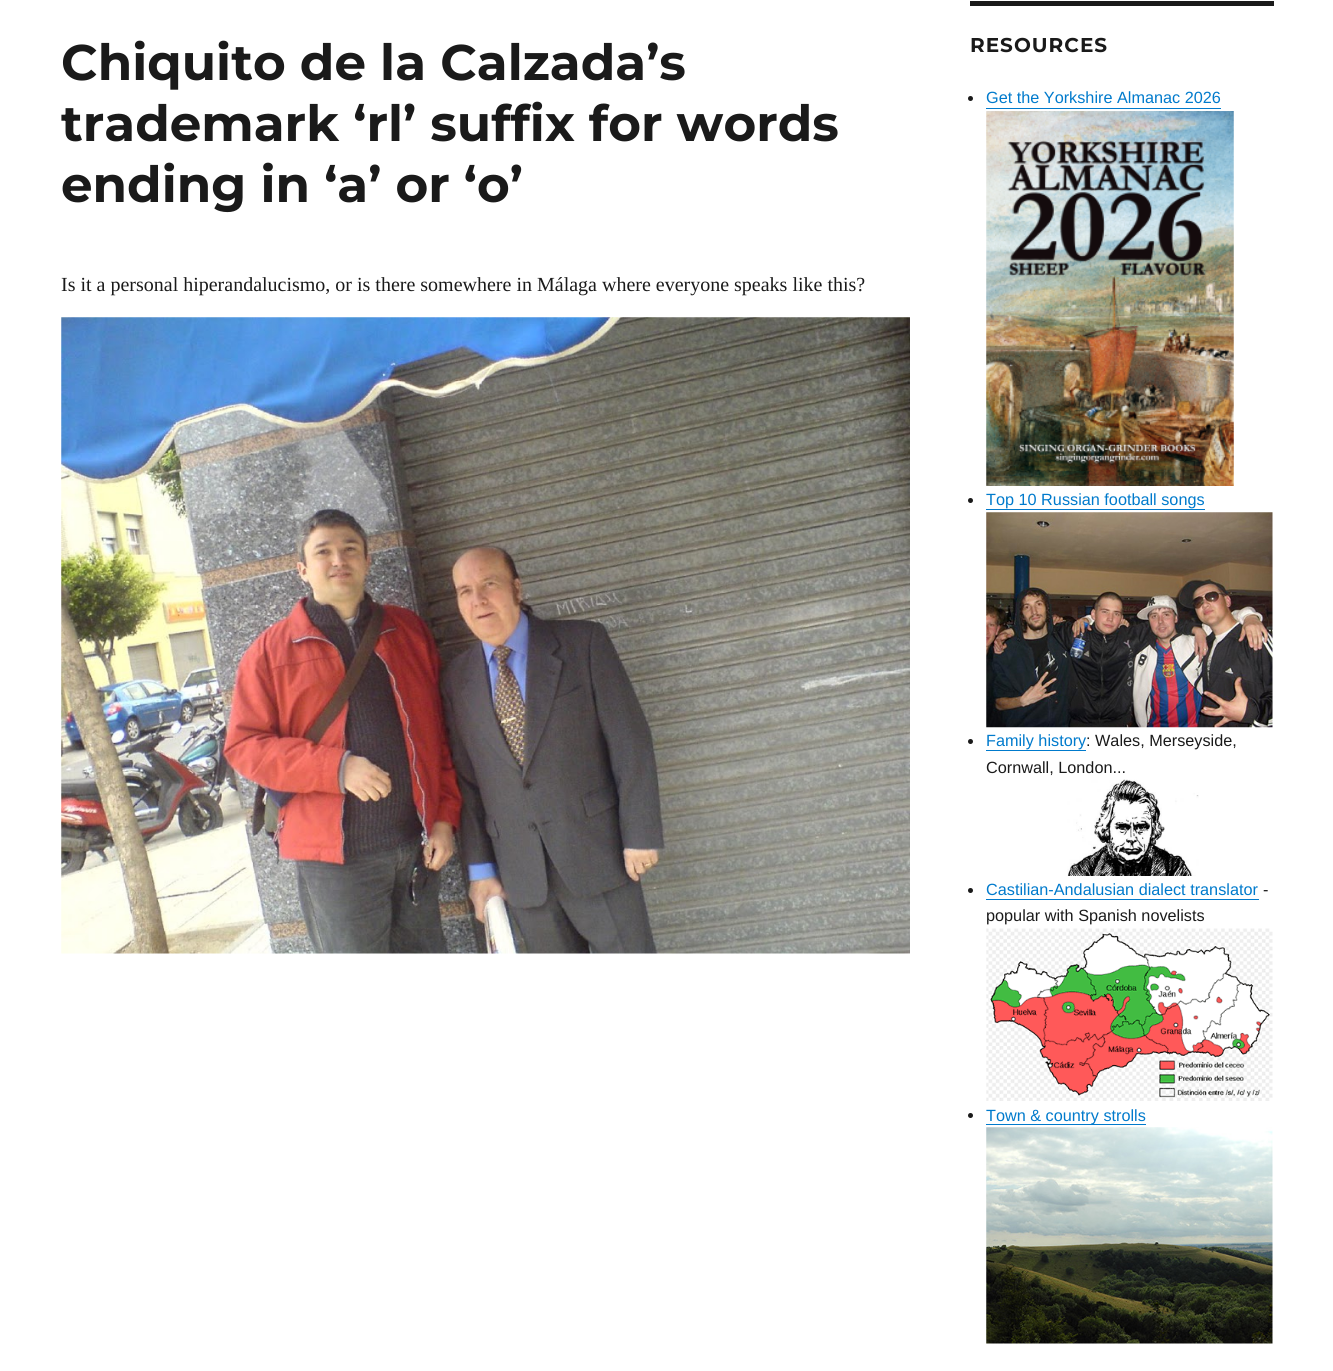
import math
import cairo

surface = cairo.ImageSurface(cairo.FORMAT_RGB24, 1333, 1371)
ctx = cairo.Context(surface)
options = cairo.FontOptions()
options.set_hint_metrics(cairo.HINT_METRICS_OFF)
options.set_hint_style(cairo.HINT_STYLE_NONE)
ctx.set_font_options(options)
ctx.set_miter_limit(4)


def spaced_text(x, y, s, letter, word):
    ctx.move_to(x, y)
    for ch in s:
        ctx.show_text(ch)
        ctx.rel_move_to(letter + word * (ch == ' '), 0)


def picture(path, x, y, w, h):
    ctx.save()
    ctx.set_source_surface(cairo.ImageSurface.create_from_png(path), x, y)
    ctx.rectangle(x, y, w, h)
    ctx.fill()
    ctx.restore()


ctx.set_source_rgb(1, 1, 1)
ctx.paint()
ctx.select_font_face("Montserrat Thin")
ctx.set_font_size(50)
ctx.set_source_rgb(0.102, 0.102, 0.102)
ctx.move_to(61, 80)
ctx.show_text("Chiquito de la Calzada’s")
ctx.move_to(61, 141)
ctx.show_text("trademark ‘rl’ suffix for words")
ctx.move_to(61, 202)
ctx.show_text("ending in ‘a’ or ‘o’")
ctx.select_font_face("Liberation Serif")
ctx.set_font_size(20)
ctx.move_to(61, 291)
ctx.show_text("Is it a personal hiperandalucismo, or is there somewhere in Málaga where everyone speaks like this?")
picture("img1.png", 61, 317, 849, 637)
ctx.rectangle(970, 1, 304, 5)
ctx.fill()
ctx.select_font_face("Montserrat Thin")
spaced_text(970, 52, "RESOURCES", 1, 0)
ctx.new_path()
ctx.arc(970.5, 98.5, 2.5, 0, 2 * math.pi)
ctx.fill()
ctx.set_source_rgb(0, 0.478, 0.8)
ctx.new_path()
ctx.move_to(986, 90)
ctx.line_to(986, 109)
ctx.line_to(1221, 109)
ctx.line_to(1221, 108)
ctx.line_to(986, 108)
ctx.close_path()
ctx.fill()
ctx.select_font_face("Liberation Sans")
ctx.set_font_size(16.25)
ctx.move_to(986, 103)
ctx.show_text("Get the Yorkshire Almanac 2026")
picture("img2.png", 986, 111, 248, 375)
ctx.set_source_rgb(0.102, 0.102, 0.102)
ctx.arc(970.5, 500.5, 2.5, 0, 2 * math.pi)
ctx.fill()
ctx.set_source_rgb(0, 0.478, 0.8)
ctx.move_to(986, 505)
ctx.show_text("Top 10 Russian football songs")
ctx.new_path()
ctx.move_to(986, 491)
ctx.line_to(986, 510)
ctx.line_to(1205, 510)
ctx.line_to(1205, 509)
ctx.line_to(986, 509)
ctx.close_path()
ctx.fill()
picture("img3.png", 986, 512, 287, 216)
ctx.set_source_rgb(0.102, 0.102, 0.102)
ctx.arc(970.5, 741.5, 2.5, 0, 2 * math.pi)
ctx.fill()
ctx.set_source_rgb(0, 0.478, 0.8)
ctx.move_to(986, 746)
ctx.show_text("Family history")
ctx.new_path()
ctx.move_to(986, 733)
ctx.line_to(986, 751)
ctx.line_to(1086, 751)
ctx.line_to(1086, 750)
ctx.line_to(986, 750)
ctx.close_path()
ctx.fill()
ctx.set_source_rgb(0.102, 0.102, 0.102)
ctx.move_to(1086, 746)
ctx.show_text(": Wales, Merseyside,")
ctx.move_to(986, 773)
ctx.show_text("Cornwall, London...")
picture("img4.png", 1067, 779, 132, 97)
ctx.arc(970.5, 890.5, 2.5, 0, 2 * math.pi)
ctx.fill()
ctx.set_source_rgb(0, 0.478, 0.8)
ctx.move_to(986, 895)
ctx.show_text("Castilian-Andalusian dialect translator")
ctx.new_path()
ctx.move_to(986, 881)
ctx.line_to(986, 900)
ctx.line_to(1259, 900)
ctx.line_to(1259, 881)
ctx.line_to(1259, 899)
ctx.line_to(986, 899)
ctx.close_path()
ctx.fill()
ctx.set_source_rgb(0.102, 0.102, 0.102)
ctx.move_to(1263, 895)
ctx.show_text("-")
ctx.move_to(986, 921)
ctx.show_text("popular with Spanish novelists")
picture("img5.png", 986, 928, 287, 173)
ctx.arc(970.5, 1115.5, 2.5, 0, 2 * math.pi)
ctx.fill()
ctx.set_source_rgb(0, 0.478, 0.8)
ctx.new_path()
ctx.move_to(986, 1106)
ctx.line_to(986, 1125)
ctx.line_to(1146, 1125)
ctx.line_to(1146, 1124)
ctx.line_to(986, 1124)
ctx.close_path()
ctx.fill()
ctx.move_to(986, 1121)
ctx.show_text("Town & country strolls")
picture("img6.png", 986, 1127, 287, 217)
surface.write_to_png("page.png")
